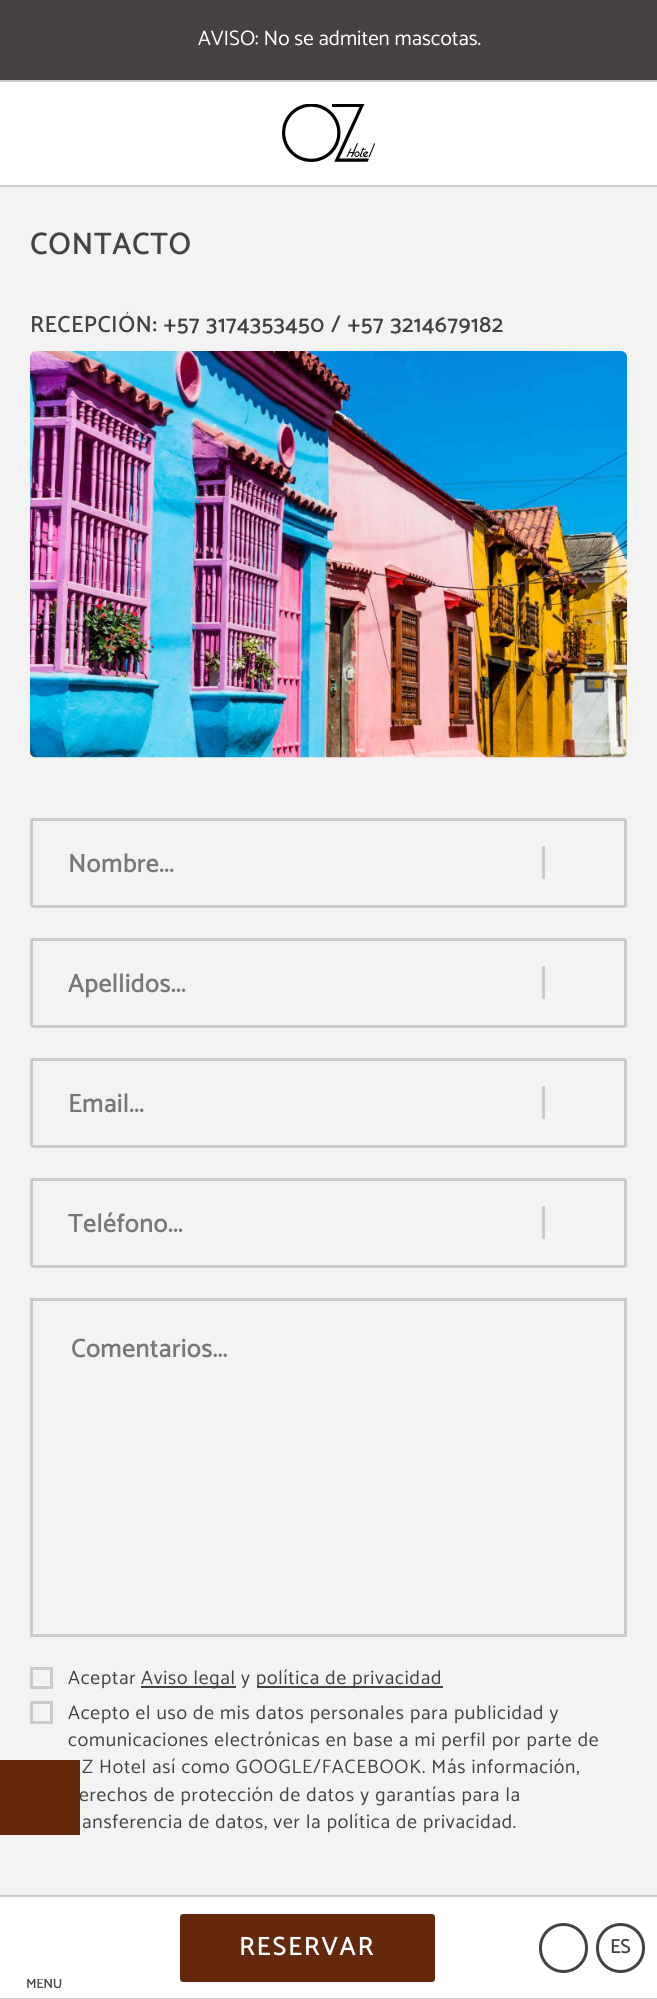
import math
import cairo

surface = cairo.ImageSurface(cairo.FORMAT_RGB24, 657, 1999)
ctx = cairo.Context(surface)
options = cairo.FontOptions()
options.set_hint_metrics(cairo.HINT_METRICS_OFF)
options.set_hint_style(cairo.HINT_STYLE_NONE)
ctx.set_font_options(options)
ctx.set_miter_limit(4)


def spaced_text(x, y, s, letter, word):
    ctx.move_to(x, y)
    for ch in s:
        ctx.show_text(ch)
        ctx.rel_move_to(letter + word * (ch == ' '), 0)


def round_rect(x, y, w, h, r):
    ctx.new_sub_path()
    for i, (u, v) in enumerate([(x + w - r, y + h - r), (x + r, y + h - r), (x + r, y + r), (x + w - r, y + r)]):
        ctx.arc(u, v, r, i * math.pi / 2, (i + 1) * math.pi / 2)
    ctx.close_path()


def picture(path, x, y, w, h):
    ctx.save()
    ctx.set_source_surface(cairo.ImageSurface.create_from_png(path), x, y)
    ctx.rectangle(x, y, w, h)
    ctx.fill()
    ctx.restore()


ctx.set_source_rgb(0.953, 0.953, 0.953)
ctx.paint()
ctx.set_source_rgb(0.278, 0.259, 0.259)
ctx.rectangle(0, 0, 657, 80)
ctx.fill()
ctx.set_source_rgb(0.8, 0.796, 0.8)
ctx.rectangle(0, 80, 657, 2)
ctx.fill()
ctx.select_font_face("Catamaran Thin")
ctx.set_font_size(21)
ctx.set_source_rgb(1, 1, 1)
ctx.move_to(198, 45)
ctx.show_text("AVISO: No se admiten mascotas.")
ctx.rectangle(0, 82, 657, 103)
ctx.fill()
ctx.set_source_rgb(0.8, 0.796, 0.8)
ctx.rectangle(0, 185, 657, 2)
ctx.fill()
picture("img1.png", 282, 104, 93, 58)
ctx.select_font_face("Catamaran", cairo.FONT_SLANT_NORMAL, cairo.FONT_WEIGHT_BOLD)
ctx.set_font_size(30)
ctx.set_source_rgb(0.278, 0.259, 0.259)
spaced_text(30, 254, "CONTACTO", 1.5, 0)
ctx.set_font_size(22.5)
spaced_text(30, 332, "RECEPCIÓN: +57 3174353450 / +57 3214679182", 1.1, 0)
picture("img2.png", 30, 351, 597, 407)
round_rect(31.5, 819.5, 594, 87, 1.5)
ctx.set_source_rgb(0.8, 0.796, 0.8)
ctx.set_line_width(3)
ctx.stroke()
ctx.set_font_size(25.5)
ctx.set_source_rgb(0.482, 0.467, 0.467)
spaced_text(68, 872, "Nombre...", 0.75, 0)
ctx.set_source_rgb(0.8, 0.796, 0.8)
ctx.rectangle(542, 846, 3, 33)
ctx.fill()
round_rect(31.5, 939.5, 594, 87, 1.5)
ctx.stroke()
ctx.set_source_rgb(0.482, 0.467, 0.467)
spaced_text(68, 992, "Apellidos...", 0.75, 0)
ctx.set_source_rgb(0.8, 0.796, 0.8)
ctx.rectangle(542, 966, 3, 33)
ctx.fill()
round_rect(31.5, 1059.5, 594, 87, 1.5)
ctx.stroke()
ctx.set_source_rgb(0.482, 0.467, 0.467)
spaced_text(68, 1112, "Email...", 0.75, 0)
ctx.set_source_rgb(0.8, 0.796, 0.8)
ctx.rectangle(542, 1086, 3, 33)
ctx.fill()
round_rect(31.5, 1179.5, 594, 87, 1.5)
ctx.stroke()
ctx.set_source_rgb(0.482, 0.467, 0.467)
spaced_text(68, 1232, "Teléfono...", 0.75, 0)
ctx.set_source_rgb(0.8, 0.796, 0.8)
ctx.rectangle(542, 1206, 3, 33)
ctx.fill()
ctx.rectangle(31.5, 1299.5, 594, 336)
ctx.stroke()
ctx.set_source_rgb(0.482, 0.467, 0.467)
spaced_text(71, 1357, "Comentarios...", 0.75, 0)
ctx.rectangle(31.5, 1668.5, 20, 19)
ctx.set_source_rgb(0.8, 0.796, 0.8)
ctx.stroke()
ctx.select_font_face("Catamaran Thin")
ctx.set_font_size(19.5)
ctx.set_source_rgb(0.278, 0.259, 0.259)
spaced_text(68, 1684, "Aceptar", 0.78, 0)
ctx.rectangle(141, 1686, 95, 2)
ctx.fill()
spaced_text(141, 1684, "Aviso legal y", 0.78, 0)
ctx.rectangle(257, 1686, 186, 2)
ctx.fill()
spaced_text(256, 1684, "política de privacidad", 0.78, 0)
ctx.rectangle(31.5, 1702.5, 20, 20)
ctx.set_source_rgb(0.8, 0.796, 0.8)
ctx.stroke()
ctx.set_source_rgb(0.278, 0.259, 0.259)
spaced_text(68, 1719, "Acepto el uso de mis datos personales para publicidad y", 0.78, 0)
spaced_text(68, 1746, "comunicaciones electrónicas en base a mi perfil por parte de", 0.78, 0)
spaced_text(82, 1773, "Z Hotel así como GOOGLE/FACEBOOK. Más información,", 0.78, 0)
spaced_text(79, 1801, "erechos de protección de datos y garantías para la", 0.78, 0)
spaced_text(82, 1828, "ansferencia de datos, ver la política de privacidad.", 0.78, 0)
ctx.set_source_rgb(0.392, 0.157, 0.047)
ctx.rectangle(0, 1760, 80, 75)
ctx.fill()
ctx.set_source_rgb(1, 1, 1)
ctx.rectangle(0, 1897, 657, 101)
ctx.fill()
ctx.set_source_rgb(0.8, 0.796, 0.8)
ctx.rectangle(0, 1895, 657, 2)
ctx.fill()
ctx.rectangle(0, 1998, 657, 1)
ctx.fill()
ctx.set_source_rgb(0.392, 0.157, 0.047)
round_rect(180, 1914, 255, 68, 3)
ctx.fill()
ctx.select_font_face("Catamaran", cairo.FONT_SLANT_NORMAL, cairo.FONT_WEIGHT_BOLD)
ctx.set_font_size(25.5)
ctx.set_source_rgb(1, 1, 1)
spaced_text(239, 1955, "RESERVAR", 2.5, 0)
round_rect(540.5, 1924.5, 46, 47, 23)
ctx.set_source_rgb(0.278, 0.259, 0.259)
ctx.stroke()
round_rect(597.5, 1924.5, 46, 47, 23)
ctx.stroke()
ctx.set_font_size(19.5)
ctx.move_to(610, 1953)
ctx.show_text("ES")
ctx.save()
ctx.rectangle(12, 1979, 63, 13)
ctx.clip()
ctx.set_font_size(13.5)
ctx.move_to(26, 1988)
ctx.show_text("MENÚ")
ctx.restore()
surface.write_to_png("page.png")
